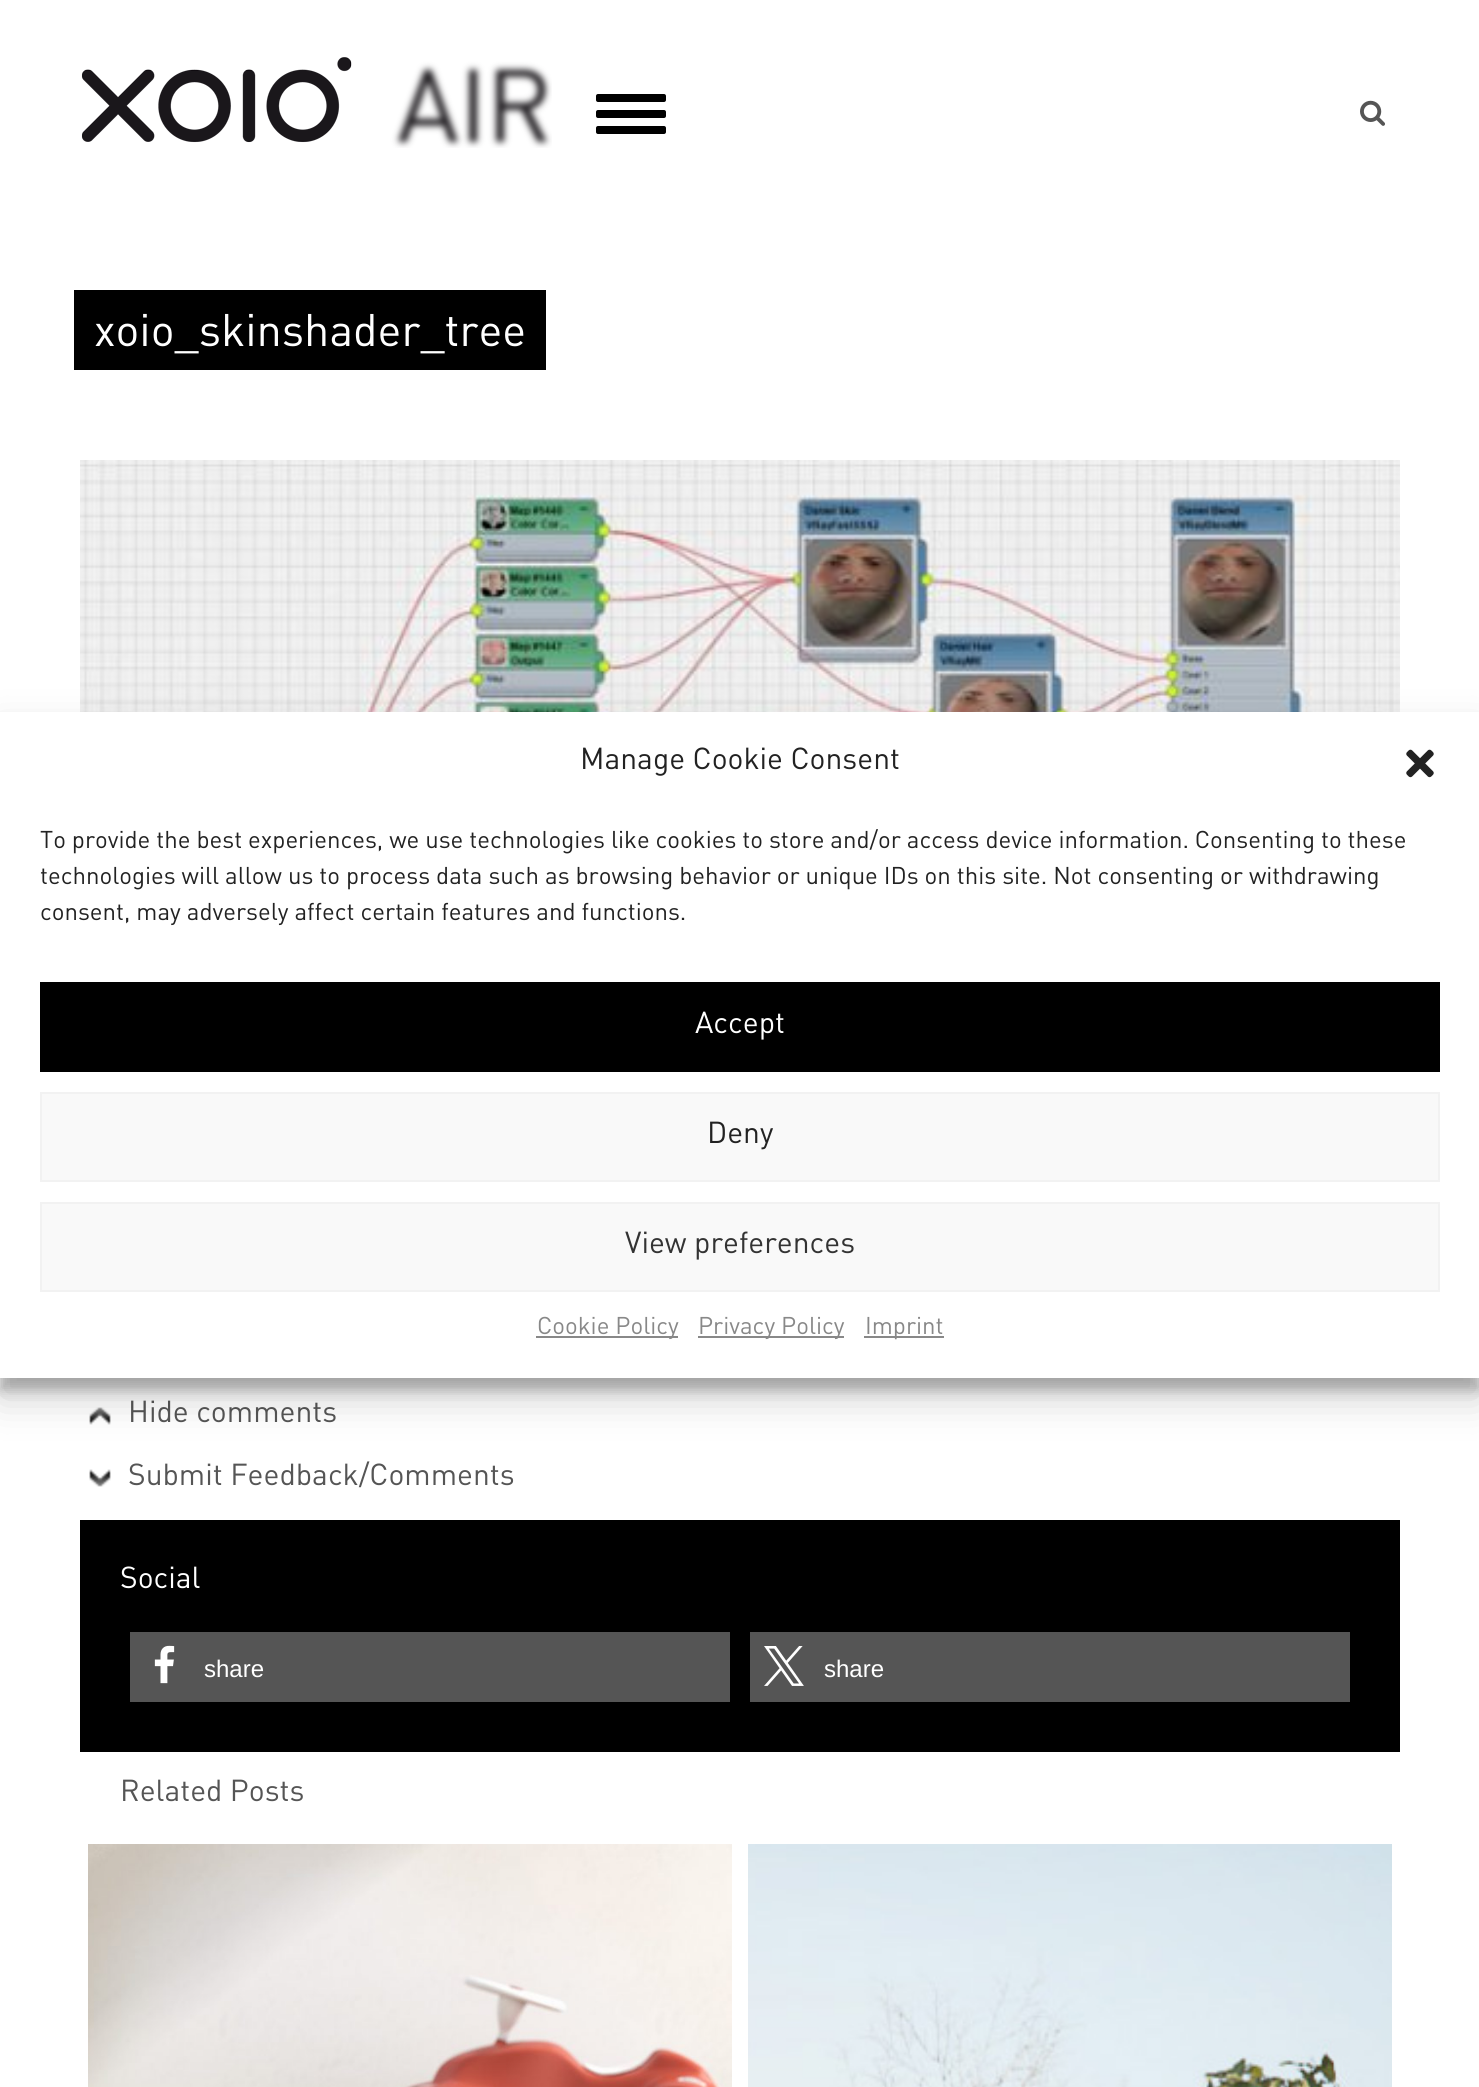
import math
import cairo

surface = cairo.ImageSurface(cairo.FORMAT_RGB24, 1479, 2087)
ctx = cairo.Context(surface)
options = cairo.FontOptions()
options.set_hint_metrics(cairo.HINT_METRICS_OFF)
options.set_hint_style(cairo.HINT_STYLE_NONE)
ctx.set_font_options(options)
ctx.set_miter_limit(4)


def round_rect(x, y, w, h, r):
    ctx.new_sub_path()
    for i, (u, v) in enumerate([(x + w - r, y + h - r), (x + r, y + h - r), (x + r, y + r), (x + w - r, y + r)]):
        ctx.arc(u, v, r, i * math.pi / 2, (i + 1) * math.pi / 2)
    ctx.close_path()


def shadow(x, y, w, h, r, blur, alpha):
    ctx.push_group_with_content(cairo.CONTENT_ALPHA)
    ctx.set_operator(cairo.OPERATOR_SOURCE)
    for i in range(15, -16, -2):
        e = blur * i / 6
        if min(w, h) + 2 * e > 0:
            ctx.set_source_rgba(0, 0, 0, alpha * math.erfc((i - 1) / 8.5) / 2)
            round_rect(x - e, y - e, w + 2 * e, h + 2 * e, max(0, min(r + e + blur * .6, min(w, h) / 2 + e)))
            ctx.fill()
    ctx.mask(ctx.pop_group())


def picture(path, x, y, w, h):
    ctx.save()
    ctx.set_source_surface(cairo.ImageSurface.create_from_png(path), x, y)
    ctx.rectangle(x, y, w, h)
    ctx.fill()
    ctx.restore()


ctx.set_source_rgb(1, 1, 1)
ctx.paint()
picture("img1.png", 81, 57, 471, 91)
ctx.set_source_rgb(0, 0, 0)
round_rect(596, 94, 70, 8, 2)
ctx.fill()
round_rect(596, 110, 70, 8, 2)
ctx.fill()
round_rect(596, 126, 70, 8, 2)
ctx.fill()
picture("img2.png", 1360, 100, 25, 26)
ctx.rectangle(74, 290, 472, 80)
ctx.fill()
ctx.select_font_face("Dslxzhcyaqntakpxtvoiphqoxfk")
ctx.set_font_size(45)
ctx.set_source_rgb(1, 1, 1)
ctx.move_to(94, 346)
ctx.show_text("xoio_skinshader_tree")
picture("img3.png", 80, 460, 1320, 252)
picture("img4.png", 89, 1407, 22, 18)
ctx.set_font_size(30)
ctx.set_source_rgb(0.333, 0.333, 0.333)
ctx.move_to(128, 1422)
ctx.show_text("Hide comments")
picture("img5.png", 89, 1469, 22, 18)
ctx.move_to(128, 1485)
ctx.show_text("Submit Feedback/Comments")
ctx.set_source_rgb(0, 0, 0)
ctx.rectangle(80, 1520, 1320, 232)
ctx.fill()
ctx.set_source_rgb(1, 1, 1)
ctx.move_to(120, 1588)
ctx.show_text("Social")
ctx.set_source_rgb(0.333, 0.333, 0.333)
ctx.rectangle(130, 1632, 600, 70)
ctx.fill()
picture("img6.png", 154, 1645, 21, 39)
ctx.select_font_face("Liberation Sans")
ctx.set_font_size(24)
ctx.set_source_rgb(1, 1, 1)
ctx.move_to(204, 1677)
ctx.show_text("share")
ctx.set_source_rgb(0.333, 0.333, 0.333)
ctx.rectangle(750, 1632, 600, 70)
ctx.fill()
picture("img7.png", 764, 1646, 40, 40)
ctx.set_source_rgb(1, 1, 1)
ctx.move_to(824, 1677)
ctx.show_text("share")
ctx.select_font_face("Dslxzhcyaqntakpxtvoiphqoxfk")
ctx.set_font_size(30)
ctx.set_source_rgb(0.333, 0.333, 0.333)
ctx.move_to(120, 1801)
ctx.show_text("Related Posts")
picture("img8.png", 88, 1844, 644, 243)
picture("img9.png", 748, 1844, 644, 243)
ctx.set_source_rgb(0, 0, 0)
shadow(0, 724, 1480, 666, 0, 6, 0.23)
shadow(0, 732, 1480, 666, 0, 20, 0.19)
ctx.set_source_rgb(1, 1, 1)
ctx.rectangle(0, 712, 1479, 666)
ctx.fill()
ctx.set_source_rgb(0.133, 0.133, 0.133)
ctx.move_to(580, 769)
ctx.show_text("Manage Cookie Consent")
picture("img10.png", 1406, 749, 28, 29)
ctx.set_font_size(24)
ctx.move_to(40, 848)
ctx.show_text("To provide the best experiences, we use technologies like cookies to store and/or access device information. Consenting to these")
ctx.move_to(40, 884)
ctx.show_text("technologies will allow us to process data such as browsing behavior or unique IDs on this site. Not consenting or withdrawing")
ctx.move_to(40, 920)
ctx.show_text("consent, may adversely affect certain features and functions.")
ctx.set_source_rgb(0, 0, 0)
ctx.rectangle(40, 982, 1400, 90)
ctx.fill()
ctx.set_font_size(30)
ctx.set_source_rgb(1, 1, 1)
ctx.move_to(695, 1033)
ctx.show_text("Accept")
ctx.set_source_rgb(0.976, 0.976, 0.976)
ctx.rectangle(41, 1093, 1398, 88)
ctx.fill_preserve()
ctx.set_source_rgb(0.949, 0.949, 0.949)
ctx.stroke()
ctx.set_source_rgb(0.133, 0.133, 0.133)
ctx.move_to(707, 1143)
ctx.show_text("Deny")
ctx.set_source_rgb(0.976, 0.976, 0.976)
ctx.rectangle(41, 1203, 1398, 88)
ctx.fill_preserve()
ctx.set_source_rgb(0.949, 0.949, 0.949)
ctx.stroke()
ctx.set_source_rgb(0.2, 0.2, 0.2)
ctx.move_to(625, 1253)
ctx.show_text("View preferences")
ctx.set_source_rgb(0.533, 0.533, 0.533)
ctx.rectangle(536, 1336, 142, 2)
ctx.fill()
ctx.set_font_size(24)
ctx.move_to(537, 1334)
ctx.show_text("Cookie Policy")
ctx.rectangle(698, 1336, 146, 2)
ctx.fill()
ctx.move_to(698, 1334)
ctx.show_text("Privacy Policy")
ctx.rectangle(864, 1336, 80, 2)
ctx.fill()
ctx.move_to(865, 1334)
ctx.show_text("Imprint")
surface.write_to_png("page.png")
